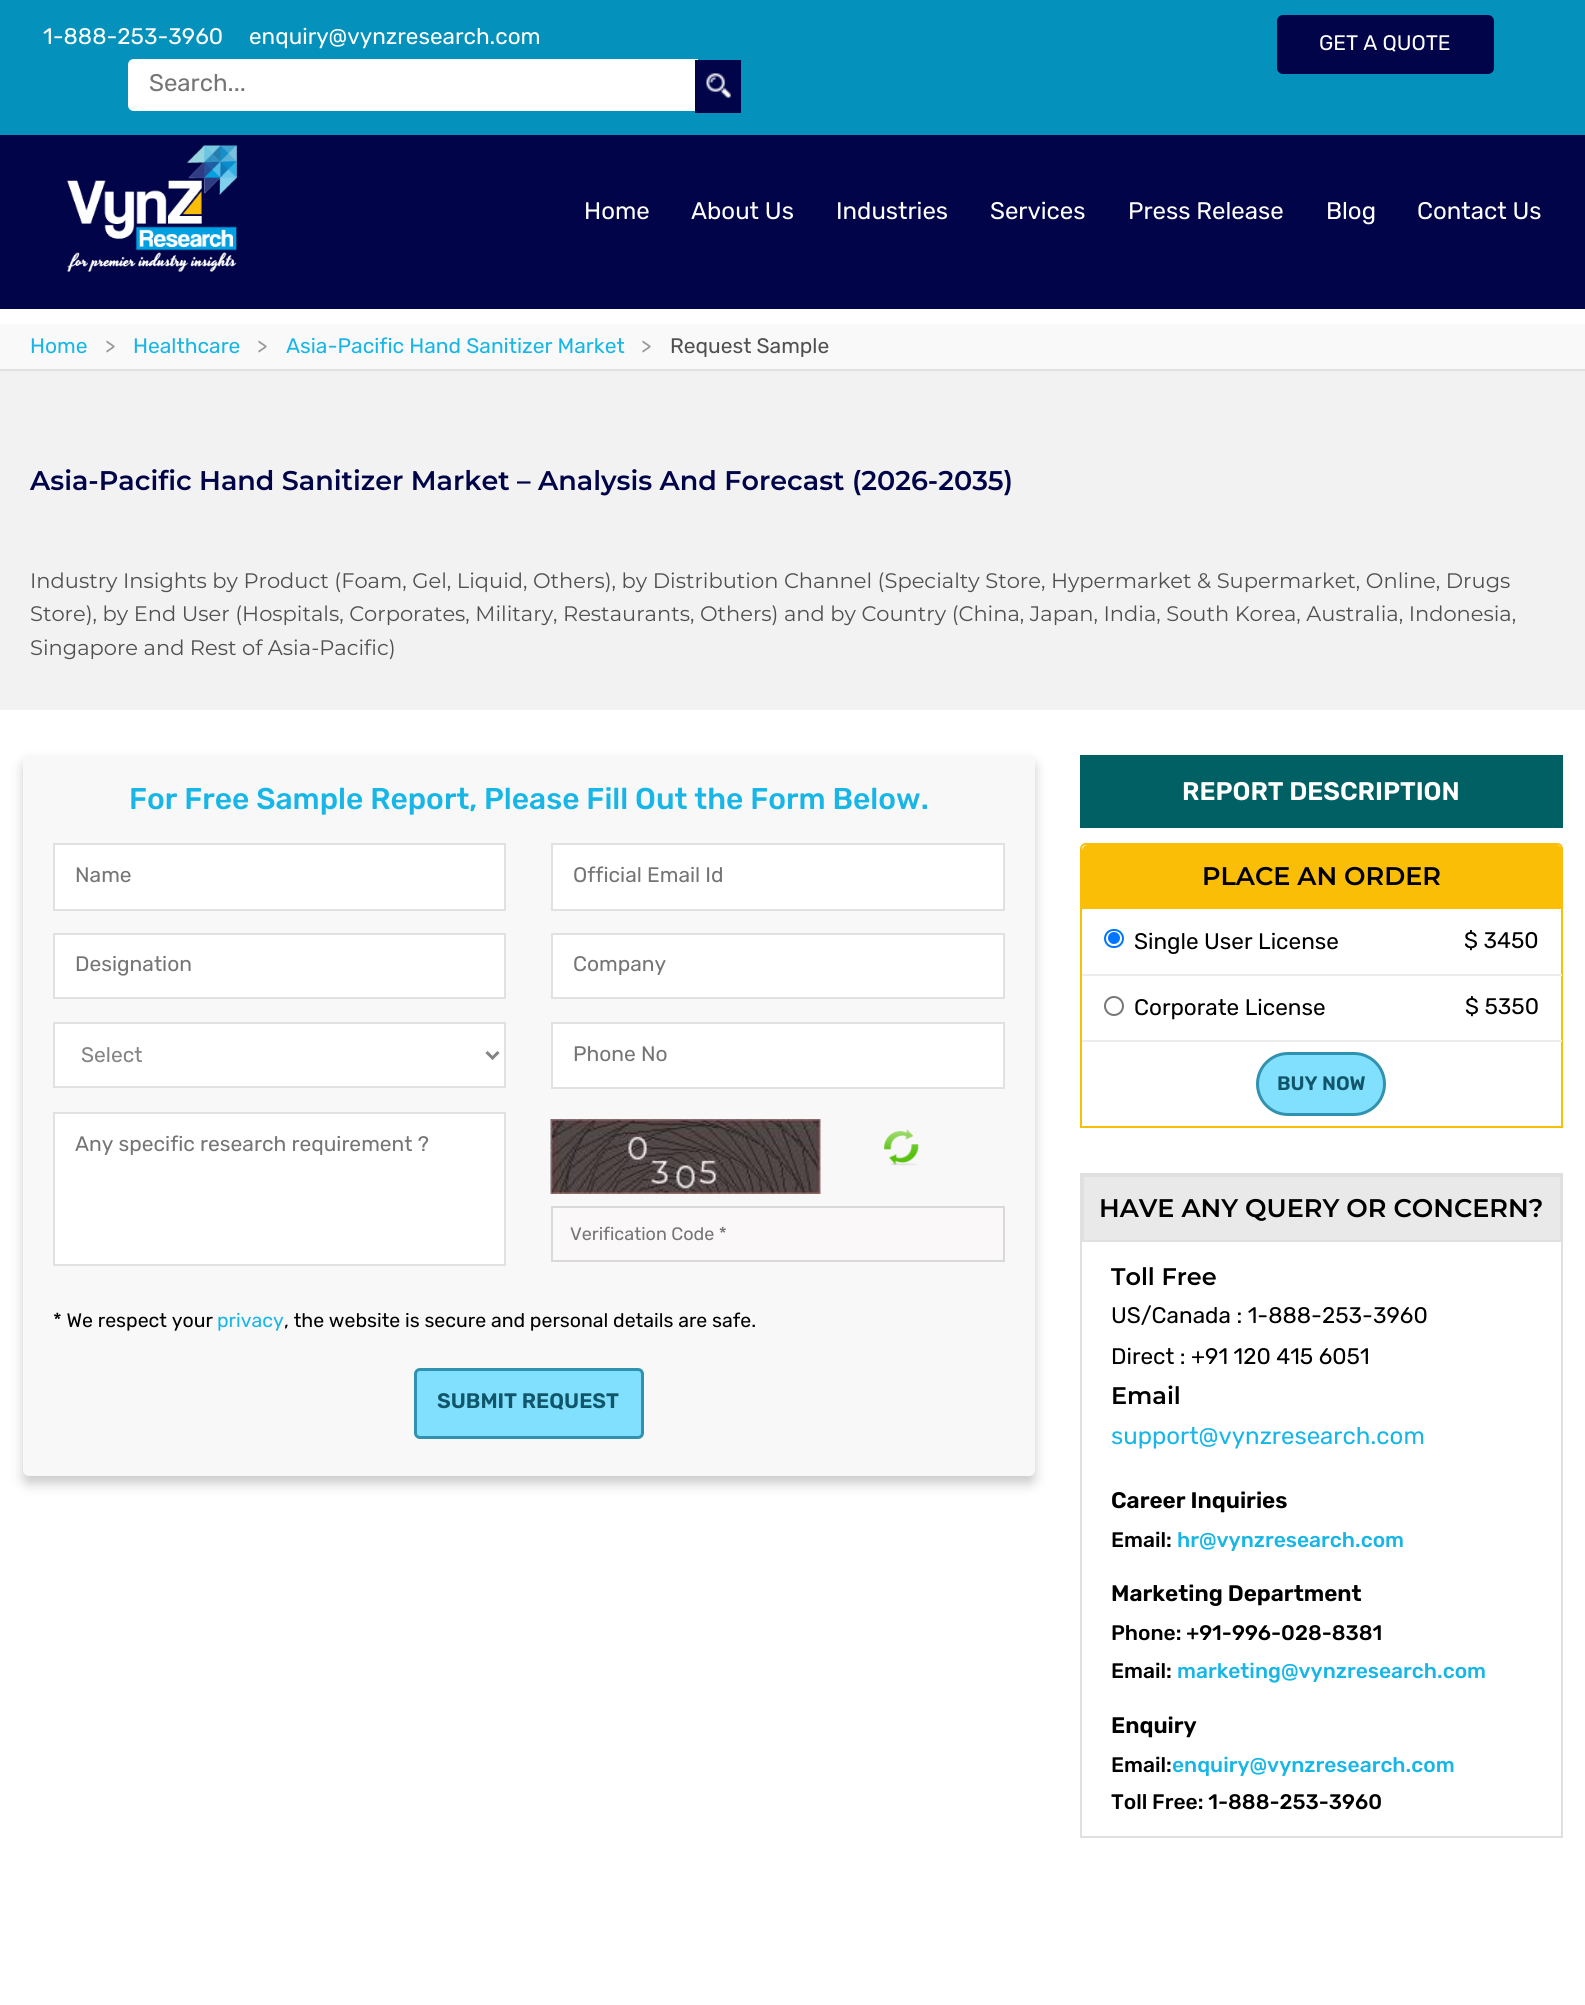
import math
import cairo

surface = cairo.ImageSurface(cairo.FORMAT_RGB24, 1585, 2005)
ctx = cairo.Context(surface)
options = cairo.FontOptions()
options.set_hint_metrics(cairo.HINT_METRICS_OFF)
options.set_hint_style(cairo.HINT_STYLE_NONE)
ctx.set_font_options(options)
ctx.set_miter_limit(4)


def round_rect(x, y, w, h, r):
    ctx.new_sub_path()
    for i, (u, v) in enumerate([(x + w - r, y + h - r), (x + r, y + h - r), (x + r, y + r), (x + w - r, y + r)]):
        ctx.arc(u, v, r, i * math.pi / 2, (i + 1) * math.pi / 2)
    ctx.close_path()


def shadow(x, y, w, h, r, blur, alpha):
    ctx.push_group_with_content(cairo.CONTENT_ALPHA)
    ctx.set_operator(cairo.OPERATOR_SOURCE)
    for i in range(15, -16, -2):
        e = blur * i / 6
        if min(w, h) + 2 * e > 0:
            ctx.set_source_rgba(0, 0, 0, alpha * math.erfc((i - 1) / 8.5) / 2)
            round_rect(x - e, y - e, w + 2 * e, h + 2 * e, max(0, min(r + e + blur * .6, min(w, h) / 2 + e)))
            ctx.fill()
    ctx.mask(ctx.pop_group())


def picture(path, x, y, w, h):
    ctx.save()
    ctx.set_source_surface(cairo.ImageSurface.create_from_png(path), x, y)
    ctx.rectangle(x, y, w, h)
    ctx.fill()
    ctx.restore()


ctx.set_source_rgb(1, 1, 1)
ctx.paint()
ctx.set_source_rgb(0.004, 0.016, 0.282)
ctx.rectangle(0, 135, 1585, 174)
ctx.fill()
ctx.set_source_rgb(0.016, 0.569, 0.737)
ctx.rectangle(0, 0, 1585, 135)
ctx.fill()
ctx.select_font_face("Rubik")
ctx.set_font_size(22.5)
ctx.set_source_rgb(1, 1, 1)
ctx.move_to(43, 44)
ctx.show_text("1-888-253-3960")
ctx.move_to(249, 44)
ctx.show_text("enquiry@vynzresearch.com")
ctx.new_path()
ctx.move_to(134, 59)
ctx.line_to(698, 59)
ctx.line_to(698, 111)
ctx.line_to(134, 111)
ctx.curve_to(130.5, 111, 128, 108.5, 128, 105)
ctx.line_to(128, 65)
ctx.curve_to(128, 61.5, 130.5, 59, 134, 59)
ctx.close_path()
ctx.fill()
ctx.set_font_size(24)
ctx.set_source_rgb(0.459, 0.459, 0.459)
ctx.move_to(149, 91)
ctx.show_text("Search...")
ctx.set_source_rgb(0.004, 0.016, 0.282)
ctx.rectangle(695, 60, 46, 53)
ctx.fill()
picture("img1.png", 706, 73, 25, 25)
round_rect(1277, 15, 217, 59, 6)
ctx.fill()
ctx.set_font_size(21)
ctx.set_source_rgb(1, 1, 1)
ctx.move_to(1319, 50)
ctx.show_text("GET A QUOTE")
picture("img2.png", 67, 145, 170, 127)
ctx.set_font_size(24)
ctx.move_to(584, 219)
ctx.show_text("Home")
ctx.move_to(691, 219)
ctx.show_text("About Us")
ctx.move_to(836, 219)
ctx.show_text("Industries")
ctx.move_to(990, 219)
ctx.show_text("Services")
ctx.move_to(1128, 219)
ctx.show_text("Press Release")
ctx.move_to(1326, 219)
ctx.show_text("Blog")
ctx.move_to(1417, 219)
ctx.show_text("Contact Us")
ctx.set_source_rgb(0.973, 0.976, 0.98)
ctx.rectangle(0, 324, 1585, 45)
ctx.fill()
ctx.set_source_rgb(0.882, 0.882, 0.882)
ctx.rectangle(0, 369, 1585, 2)
ctx.fill()
ctx.set_font_size(21)
ctx.set_source_rgb(0.09, 0.714, 0.902)
ctx.move_to(30, 353)
ctx.show_text("Home")
ctx.set_source_rgb(0.6, 0.6, 0.6)
ctx.move_to(105, 353)
ctx.show_text(">")
ctx.set_source_rgb(0.09, 0.714, 0.902)
ctx.move_to(133, 353)
ctx.show_text("Healthcare")
ctx.set_source_rgb(0.6, 0.6, 0.6)
ctx.move_to(257, 353)
ctx.show_text(">")
ctx.set_source_rgb(0.09, 0.714, 0.902)
ctx.move_to(286, 353)
ctx.show_text("Asia-Pacific Hand Sanitizer Market")
ctx.set_source_rgb(0.6, 0.6, 0.6)
ctx.move_to(641, 353)
ctx.show_text(">")
ctx.set_source_rgb(0.314, 0.314, 0.314)
ctx.move_to(670, 353)
ctx.show_text("Request Sample")
ctx.set_source_rgb(0.949, 0.949, 0.949)
ctx.rectangle(0, 371, 1585, 339)
ctx.fill()
ctx.select_font_face("Montserrat SemiBold")
ctx.set_font_size(27)
ctx.set_source_rgb(0.004, 0.016, 0.282)
ctx.move_to(30, 490)
ctx.show_text("Asia-Pacific Hand Sanitizer Market – Analysis And Forecast (2026-2035)")
ctx.select_font_face("Montserrat")
ctx.set_font_size(21)
ctx.set_source_rgb(0.314, 0.314, 0.314)
ctx.move_to(30, 588)
ctx.show_text("Industry Insights by Product (Foam, Gel, Liquid, Others), by Distribution Channel (Specialty Store, Hypermarket & Supermarket, Online, Drugs")
ctx.move_to(30, 621)
ctx.show_text("Store), by End User (Hospitals, Corporates, Military, Restaurants, Others) and by Country (China, Japan, India, South Korea, Australia, Indonesia,")
ctx.move_to(30, 655)
ctx.show_text("Singapore and Rest of Asia-Pacific)")
ctx.set_source_rgb(0, 0, 0)
shadow(23, 762, 1012, 722, 6, 6, 0.2)
ctx.set_source_rgb(0.969, 0.969, 0.969)
round_rect(23, 755, 1012, 721, 6)
ctx.fill()
ctx.select_font_face("Rubik Medium")
ctx.set_font_size(30)
ctx.set_source_rgb(0.09, 0.714, 0.902)
ctx.move_to(129, 809)
ctx.show_text("For Free Sample Report, Please Fill Out the Form Below.")
ctx.set_source_rgb(1, 1, 1)
ctx.rectangle(54, 844, 451, 66)
ctx.fill_preserve()
ctx.set_source_rgb(0.882, 0.882, 0.882)
ctx.stroke()
ctx.select_font_face("Rubik")
ctx.set_font_size(21)
ctx.set_source_rgb(0.459, 0.459, 0.459)
ctx.move_to(75, 882)
ctx.show_text("Name")
ctx.set_source_rgb(1, 1, 1)
ctx.rectangle(552, 844, 452, 66)
ctx.fill_preserve()
ctx.set_source_rgb(0.882, 0.882, 0.882)
ctx.stroke()
ctx.set_source_rgb(0.459, 0.459, 0.459)
ctx.move_to(573, 882)
ctx.show_text("Official Email Id")
ctx.set_source_rgb(1, 1, 1)
ctx.rectangle(54, 934, 451, 64)
ctx.fill_preserve()
ctx.set_source_rgb(0.882, 0.882, 0.882)
ctx.stroke()
ctx.set_source_rgb(0.459, 0.459, 0.459)
ctx.move_to(75, 971)
ctx.show_text("Designation")
ctx.set_source_rgb(1, 1, 1)
ctx.rectangle(552, 934, 452, 64)
ctx.fill_preserve()
ctx.set_source_rgb(0.882, 0.882, 0.882)
ctx.stroke()
ctx.set_source_rgb(0.459, 0.459, 0.459)
ctx.move_to(573, 971)
ctx.show_text("Company")
ctx.set_source_rgb(1, 1, 1)
ctx.rectangle(54, 1023, 451, 64)
ctx.fill_preserve()
ctx.set_source_rgb(0.882, 0.882, 0.882)
ctx.stroke()
ctx.new_path()
ctx.move_to(486.5, 1052)
ctx.line_to(492.5, 1058)
ctx.line_to(498.5, 1052)
ctx.set_source_rgb(0.518, 0.518, 0.518)
ctx.set_line_width(3)
ctx.stroke()
ctx.move_to(81, 1062)
ctx.show_text("Select")
ctx.set_source_rgb(1, 1, 1)
ctx.rectangle(552, 1023, 452, 65)
ctx.fill_preserve()
ctx.set_source_rgb(0.882, 0.882, 0.882)
ctx.set_line_width(2)
ctx.stroke()
ctx.set_source_rgb(0.459, 0.459, 0.459)
ctx.move_to(573, 1061)
ctx.show_text("Phone No")
ctx.set_source_rgb(1, 1, 1)
ctx.rectangle(54, 1113, 451, 152)
ctx.fill_preserve()
ctx.set_source_rgb(0.882, 0.882, 0.882)
ctx.stroke()
ctx.set_source_rgb(0.459, 0.459, 0.459)
ctx.move_to(75, 1151)
ctx.show_text("Any specific research requirement ?")
picture("img3.png", 550, 1119, 271, 75)
picture("img4.png", 884, 1129, 35, 37)
ctx.set_source_rgb(0.98, 0.969, 0.969)
ctx.rectangle(552, 1207, 452, 54)
ctx.fill_preserve()
ctx.set_source_rgb(0.851, 0.851, 0.851)
ctx.stroke()
ctx.set_font_size(18)
ctx.set_source_rgb(0.459, 0.459, 0.459)
ctx.move_to(570, 1240)
ctx.show_text("Verification Code *")
ctx.set_font_size(19.5)
ctx.set_source_rgb(0, 0, 0)
ctx.move_to(53, 1327)
ctx.show_text("* We respect your")
ctx.set_source_rgb(0.09, 0.714, 0.902)
ctx.move_to(217, 1327)
ctx.show_text("privacy")
ctx.set_source_rgb(0, 0, 0)
ctx.move_to(284, 1327)
ctx.show_text(", the website is secure and personal details are safe.")
ctx.set_source_rgb(0.506, 0.878, 0.992)
round_rect(415.5, 1369.5, 227, 68, 4.5)
ctx.fill_preserve()
ctx.set_source_rgb(0.192, 0.573, 0.686)
ctx.set_line_width(3)
ctx.stroke()
ctx.select_font_face("Rubik SemiBold")
ctx.set_font_size(21)
ctx.set_source_rgb(0.063, 0.333, 0.416)
ctx.move_to(437, 1408)
ctx.show_text("SUBMIT REQUEST")
ctx.set_source_rgb(0, 0.376, 0.392)
ctx.rectangle(1080, 755, 483, 73)
ctx.fill()
ctx.set_font_size(25.5)
ctx.set_source_rgb(1, 1, 1)
ctx.move_to(1182, 800)
ctx.show_text("REPORT DESCRIPTION")
ctx.new_path()
ctx.move_to(1086, 844)
ctx.line_to(1557, 844)
ctx.curve_to(1560, 844, 1562, 846, 1562, 849)
ctx.line_to(1562, 1127)
ctx.line_to(1081, 1127)
ctx.line_to(1081, 849)
ctx.curve_to(1081, 846, 1083, 844, 1086, 844)
ctx.close_path()
ctx.set_source_rgb(0.984, 0.745, 0.027)
ctx.set_line_width(2)
ctx.stroke()
ctx.new_path()
ctx.move_to(1088, 845)
ctx.line_to(1556, 845)
ctx.curve_to(1559.5, 845, 1562, 847.5, 1562, 851)
ctx.line_to(1562, 909)
ctx.line_to(1082, 909)
ctx.line_to(1082, 851)
ctx.curve_to(1082, 847.5, 1084.5, 845, 1088, 845)
ctx.close_path()
ctx.fill()
ctx.select_font_face("Montserrat SemiBold")
ctx.set_source_rgb(0, 0, 0)
ctx.move_to(1202, 885)
ctx.show_text("PLACE AN ORDER")
ctx.set_source_rgb(0.922, 0.922, 0.922)
ctx.rectangle(1082, 974, 480, 2)
ctx.fill()
round_rect(1105, 930, 18, 17, 8.5)
ctx.set_source_rgb(0, 0.459, 1)
ctx.stroke()
ctx.arc(1114, 938, 6, 0, 2 * math.pi)
ctx.fill()
ctx.select_font_face("Rubik")
ctx.set_font_size(22.5)
ctx.set_source_rgb(0, 0, 0)
ctx.move_to(1134, 949)
ctx.show_text("Single User License")
ctx.move_to(1464, 948)
ctx.show_text("$ 3450")
ctx.set_source_rgb(0.922, 0.922, 0.922)
ctx.rectangle(1082, 1040, 480, 2)
ctx.fill()
ctx.arc(1114, 1006, 9, 0, 2 * math.pi)
ctx.set_source_rgb(0.463, 0.463, 0.463)
ctx.stroke()
ctx.set_source_rgb(0, 0, 0)
ctx.move_to(1134, 1015)
ctx.show_text("Corporate License")
ctx.move_to(1465, 1014)
ctx.show_text("$ 5350")
ctx.set_source_rgb(0.506, 0.878, 0.992)
round_rect(1257.5, 1053.5, 127, 61, 30.5)
ctx.fill_preserve()
ctx.set_source_rgb(0.192, 0.573, 0.686)
ctx.set_line_width(3)
ctx.stroke()
ctx.select_font_face("Rubik SemiBold")
ctx.set_font_size(19.5)
ctx.set_source_rgb(0.063, 0.333, 0.416)
ctx.move_to(1277, 1090)
ctx.show_text("BUY NOW")
ctx.rectangle(1081, 1174, 481, 663)
ctx.set_source_rgb(0.878, 0.878, 0.878)
ctx.set_line_width(2)
ctx.stroke()
ctx.set_source_rgb(0.914, 0.914, 0.914)
ctx.rectangle(1083, 1176, 478, 65)
ctx.fill_preserve()
ctx.set_source_rgb(0.878, 0.878, 0.878)
ctx.stroke()
ctx.select_font_face("Montserrat SemiBold")
ctx.set_font_size(25.5)
ctx.set_source_rgb(0, 0, 0)
ctx.move_to(1099, 1217)
ctx.show_text("HAVE ANY QUERY OR CONCERN?")
ctx.set_font_size(24)
ctx.move_to(1111, 1285)
ctx.show_text("Toll Free")
ctx.select_font_face("Rubik")
ctx.set_font_size(22.5)
ctx.move_to(1111, 1323)
ctx.show_text("US/Canada : 1-888-253-3960")
ctx.move_to(1111, 1364)
ctx.show_text("Direct : +91 120 415 6051")
ctx.select_font_face("Montserrat SemiBold")
ctx.set_font_size(24)
ctx.move_to(1111, 1404)
ctx.show_text("Email")
ctx.select_font_face("Rubik")
ctx.set_source_rgb(0.09, 0.714, 0.902)
ctx.move_to(1111, 1444)
ctx.show_text("support@vynzresearch.com")
ctx.select_font_face("Rubik SemiBold")
ctx.set_font_size(22.5)
ctx.set_source_rgb(0, 0, 0)
ctx.move_to(1111, 1508)
ctx.show_text("Career Inquiries")
ctx.select_font_face("Rubik Medium")
ctx.set_font_size(21)
ctx.move_to(1111, 1547)
ctx.show_text("Email:")
ctx.set_source_rgb(0.09, 0.714, 0.902)
ctx.move_to(1177, 1547)
ctx.show_text("hr@vynzresearch.com")
ctx.select_font_face("Rubik SemiBold")
ctx.set_font_size(22.5)
ctx.set_source_rgb(0, 0, 0)
ctx.move_to(1111, 1601)
ctx.show_text("Marketing Department")
ctx.select_font_face("Rubik Medium")
ctx.set_font_size(21)
ctx.move_to(1111, 1640)
ctx.show_text("Phone: +91-996-028-8381")
ctx.move_to(1111, 1678)
ctx.show_text("Email:")
ctx.set_source_rgb(0.09, 0.714, 0.902)
ctx.move_to(1177, 1678)
ctx.show_text("marketing@vynzresearch.com")
ctx.select_font_face("Rubik SemiBold")
ctx.set_font_size(22.5)
ctx.set_source_rgb(0, 0, 0)
ctx.move_to(1111, 1733)
ctx.show_text("Enquiry")
ctx.select_font_face("Rubik Medium")
ctx.set_font_size(21)
ctx.move_to(1111, 1772)
ctx.show_text("Email:")
ctx.set_source_rgb(0.09, 0.714, 0.902)
ctx.move_to(1172, 1772)
ctx.show_text("enquiry@vynzresearch.com")
ctx.set_source_rgb(0, 0, 0)
ctx.move_to(1111, 1809)
ctx.show_text("Toll Free: 1-888-253-3960")
surface.write_to_png("page.png")
